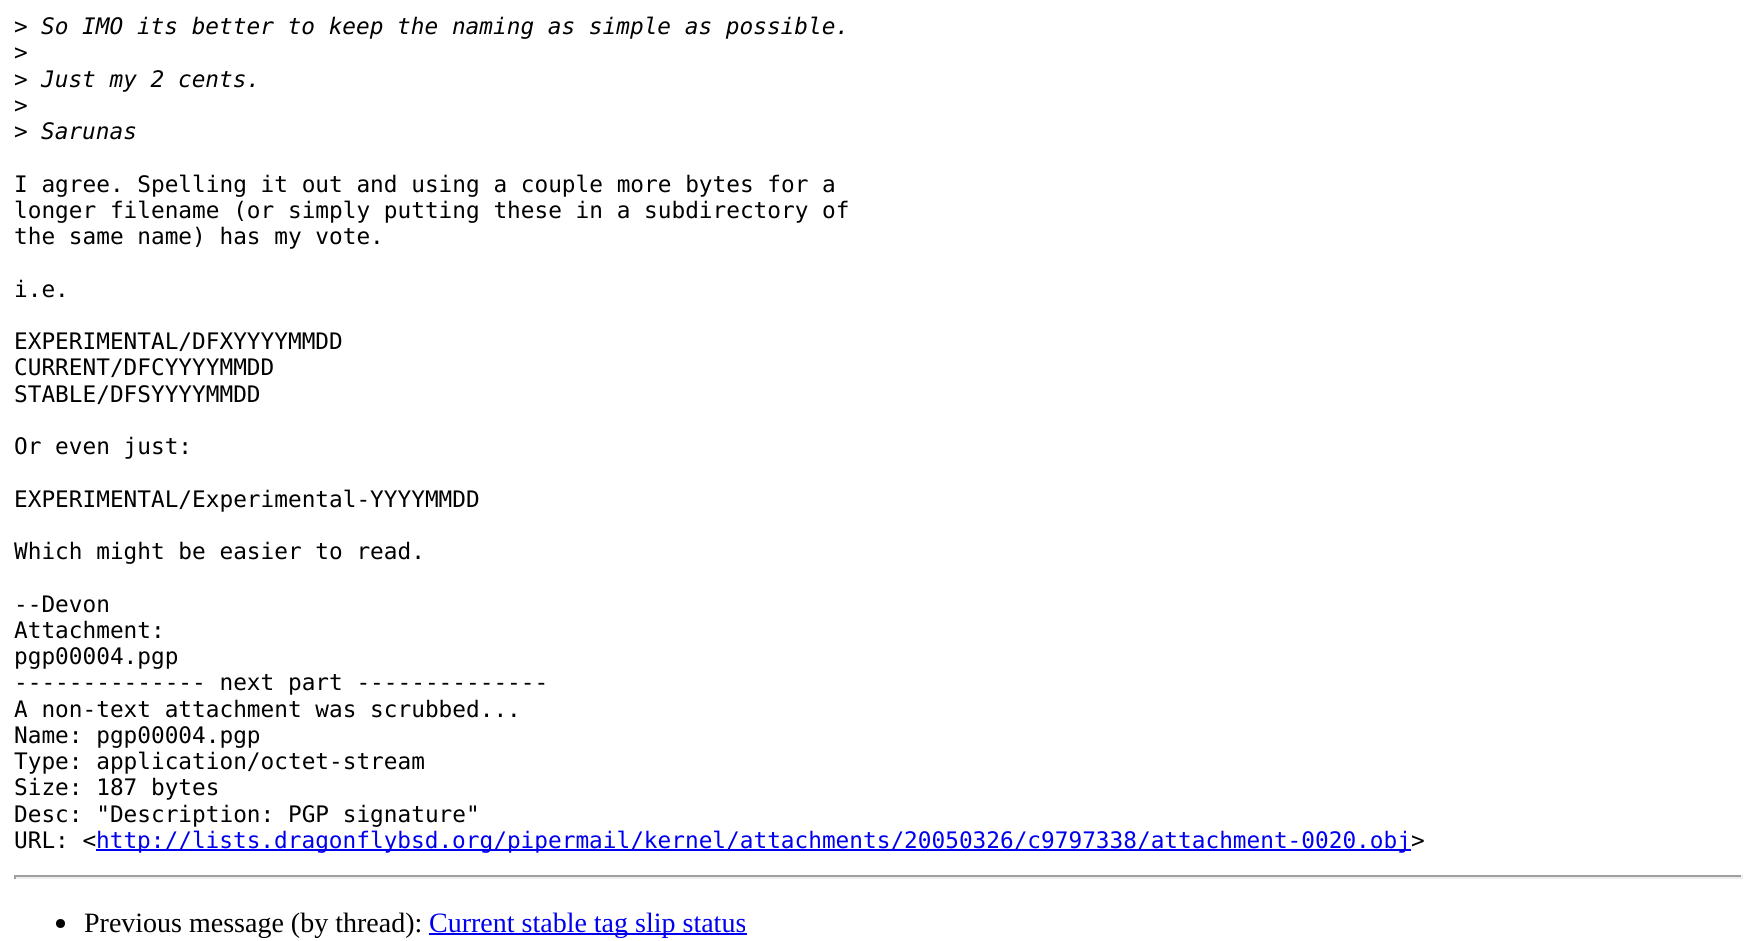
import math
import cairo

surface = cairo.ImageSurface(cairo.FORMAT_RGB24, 1757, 941)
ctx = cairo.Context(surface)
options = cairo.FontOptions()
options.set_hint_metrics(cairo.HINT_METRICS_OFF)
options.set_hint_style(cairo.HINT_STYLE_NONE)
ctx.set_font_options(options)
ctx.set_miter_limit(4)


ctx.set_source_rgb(1, 1, 1)
ctx.paint()
ctx.select_font_face("DejaVu Sans Mono")
ctx.set_font_size(22.75)
ctx.set_source_rgb(0, 0, 0)
ctx.move_to(14, 34)
ctx.show_text(">")
ctx.select_font_face("DejaVu Sans Mono", cairo.FONT_SLANT_ITALIC)
ctx.move_to(41, 34)
ctx.show_text("So IMO its better to keep the naming as simple as possible.")
ctx.select_font_face("DejaVu Sans Mono")
ctx.move_to(14, 60)
ctx.show_text(">")
ctx.move_to(14, 87)
ctx.show_text(">")
ctx.select_font_face("DejaVu Sans Mono", cairo.FONT_SLANT_ITALIC)
ctx.move_to(41, 87)
ctx.show_text("Just my 2 cents.")
ctx.select_font_face("DejaVu Sans Mono")
ctx.move_to(14, 113)
ctx.show_text(">")
ctx.move_to(14, 139)
ctx.show_text(">")
ctx.select_font_face("DejaVu Sans Mono", cairo.FONT_SLANT_ITALIC)
ctx.move_to(41, 139)
ctx.show_text("Sarunas")
ctx.select_font_face("DejaVu Sans Mono")
ctx.move_to(14, 192)
ctx.show_text("I agree. Spelling it out and using a couple more bytes for a")
ctx.move_to(14, 218)
ctx.show_text("longer filename (or simply putting these in a subdirectory of")
ctx.move_to(14, 244)
ctx.show_text("the same name) has my vote.")
ctx.move_to(14, 297)
ctx.show_text("i.e.")
ctx.move_to(14, 349)
ctx.show_text("EXPERIMENTAL/DFXYYYYMMDD")
ctx.move_to(14, 375)
ctx.show_text("CURRENT/DFCYYYYMMDD")
ctx.move_to(14, 402)
ctx.show_text("STABLE/DFSYYYYMMDD")
ctx.move_to(14, 454)
ctx.show_text("Or even just:")
ctx.move_to(14, 507)
ctx.show_text("EXPERIMENTAL/Experimental-YYYYMMDD")
ctx.move_to(14, 559)
ctx.show_text("Which might be easier to read.")
ctx.move_to(14, 612)
ctx.show_text("--Devon")
ctx.move_to(14, 638)
ctx.show_text("Attachment:")
ctx.move_to(14, 664)
ctx.show_text("pgp00004.pgp")
ctx.move_to(14, 690)
ctx.show_text("-------------- next part --------------")
ctx.move_to(14, 717)
ctx.show_text("A non-text attachment was scrubbed...")
ctx.move_to(14, 743)
ctx.show_text("Name: pgp00004.pgp")
ctx.move_to(14, 769)
ctx.show_text("Type: application/octet-stream")
ctx.move_to(14, 795)
ctx.show_text("Size: 187 bytes")
ctx.move_to(14, 822)
ctx.show_text("Desc: \"Description: PGP signature\"")
ctx.move_to(14, 848)
ctx.show_text("URL: <")
ctx.set_source_rgb(0, 0, 0.933)
ctx.rectangle(96, 849, 1315, 2)
ctx.fill()
ctx.move_to(96, 848)
ctx.show_text("http://lists.dragonflybsd.org/pipermail/kernel/attachments/20050326/c9797338/attachment-0020.obj")
ctx.set_source_rgb(0, 0, 0)
ctx.move_to(1411, 848)
ctx.show_text(">")
ctx.set_source_rgb(0.624, 0.624, 0.624)
ctx.rectangle(14, 875, 1729, 2)
ctx.fill()
ctx.set_source_rgb(0.933, 0.933, 0.933)
ctx.rectangle(1741, 875, 2, 4)
ctx.fill()
ctx.rectangle(14, 877, 1729, 2)
ctx.fill()
ctx.set_source_rgb(0.624, 0.624, 0.624)
ctx.rectangle(14, 875, 2, 4)
ctx.fill()
ctx.set_source_rgb(0, 0, 0)
ctx.arc(60.5, 923.5, 4.5, 0, 2 * math.pi)
ctx.fill()
ctx.select_font_face("Liberation Serif")
ctx.set_font_size(28)
ctx.move_to(84, 932)
ctx.show_text("Previous message (by thread):")
ctx.set_source_rgb(0, 0, 0.933)
ctx.rectangle(429, 933, 318, 2)
ctx.fill()
ctx.move_to(429, 932)
ctx.show_text("Current stable tag slip status")
surface.write_to_png("page.png")
